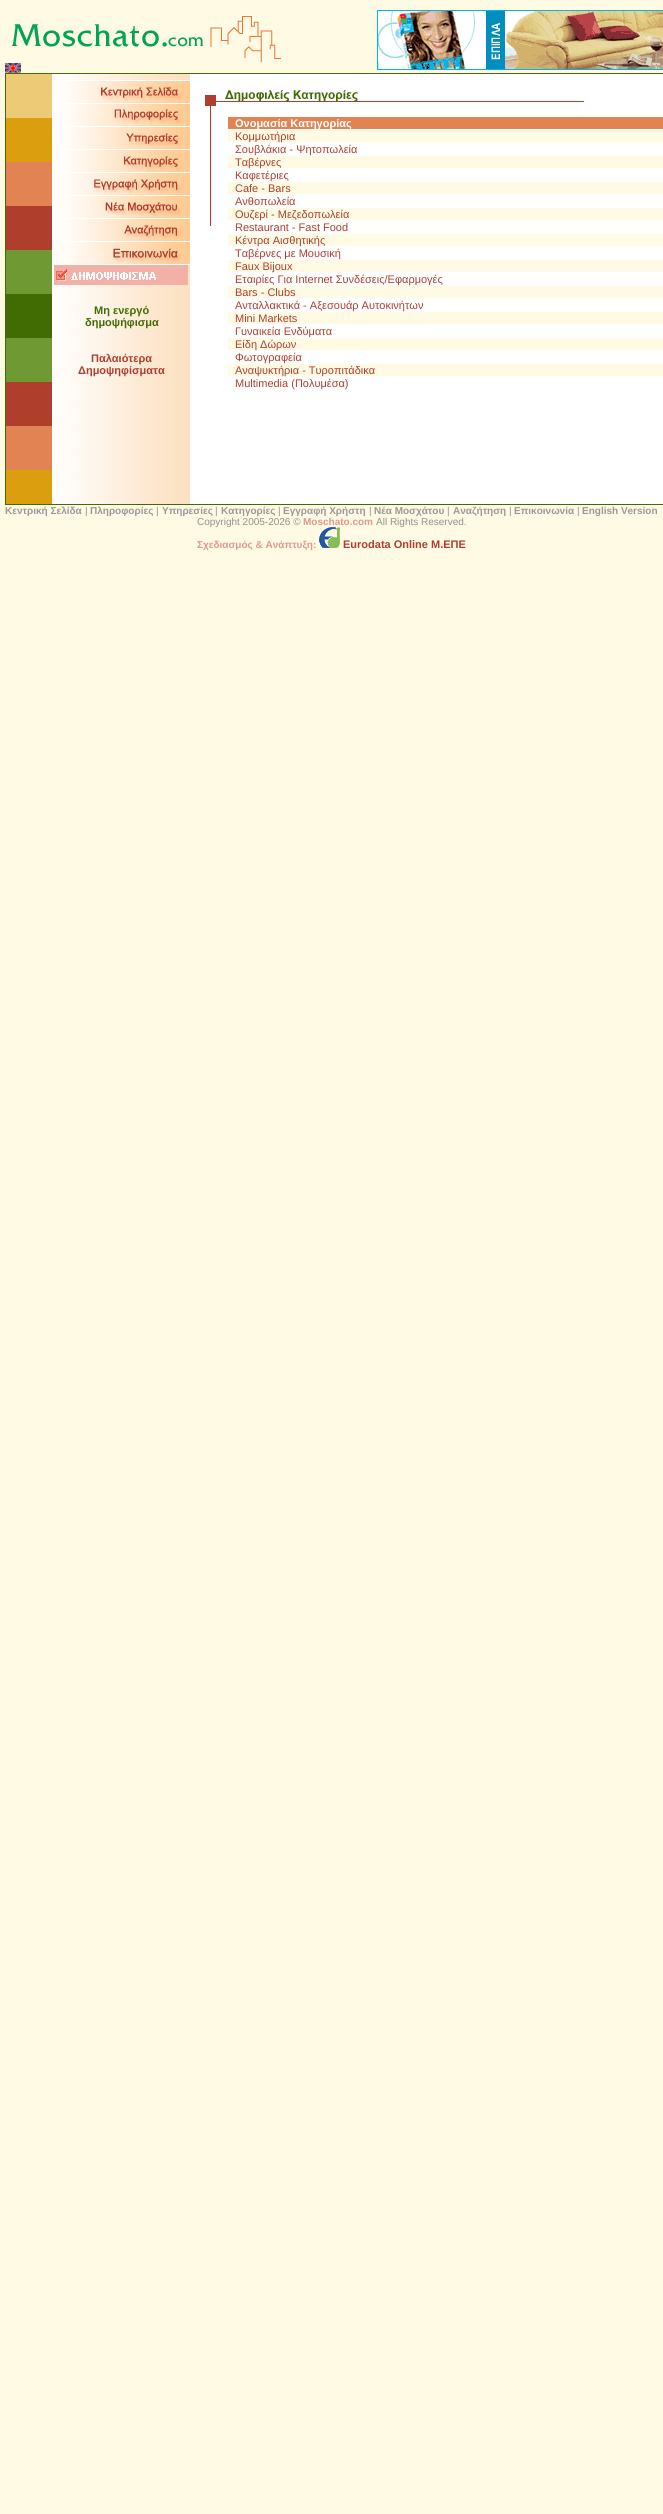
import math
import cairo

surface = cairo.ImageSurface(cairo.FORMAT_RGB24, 663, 2514)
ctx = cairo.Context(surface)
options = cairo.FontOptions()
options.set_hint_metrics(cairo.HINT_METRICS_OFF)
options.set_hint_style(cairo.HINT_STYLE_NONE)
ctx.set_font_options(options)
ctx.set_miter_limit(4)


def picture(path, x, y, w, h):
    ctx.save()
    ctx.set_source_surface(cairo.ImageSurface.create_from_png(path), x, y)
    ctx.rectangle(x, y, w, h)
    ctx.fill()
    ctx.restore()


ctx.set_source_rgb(1, 0.98, 0.89)
ctx.paint()
picture("img1.png", 11, 16, 270, 46)
picture("img2.png", 5, 63, 16, 10)
picture("img3.png", 377, 10, 286, 60)
ctx.set_source_rgb(0.255, 0.424, 0.012)
ctx.rectangle(5, 73, 658, 1)
ctx.fill()
picture("img4.png", 5, 74, 658, 430)
picture("img5.png", 6, 74, 46, 430)
picture("img6.png", 60, 80, 130, 23)
picture("img7.png", 58, 103, 132, 23)
picture("img8.png", 58, 126, 132, 23)
picture("img9.png", 60, 149, 130, 23)
picture("img10.png", 58, 172, 132, 23)
picture("img11.png", 58, 195, 132, 23)
picture("img12.png", 60, 218, 130, 23)
picture("img13.png", 58, 241, 132, 23)
ctx.set_source_rgb(1, 1, 1)
ctx.rectangle(58, 264, 132, 1)
ctx.fill()
picture("img14.png", 54, 265, 134, 20)
ctx.select_font_face("Liberation Sans", cairo.FONT_SLANT_NORMAL, cairo.FONT_WEIGHT_BOLD)
ctx.set_font_size(11)
ctx.set_source_rgb(0.255, 0.424, 0.012)
ctx.move_to(94, 314)
ctx.show_text("Μη ενεργό")
ctx.move_to(85, 326)
ctx.show_text("δημοψήφισμα")
ctx.set_source_rgb(0.686, 0.243, 0.176)
ctx.move_to(91, 362)
ctx.show_text("Παλαιότερα")
ctx.move_to(78, 374)
ctx.show_text("Δημοψηφίσματα")
picture("img15.png", 205, 90, 379, 16)
ctx.rectangle(210, 106, 1, 120)
ctx.fill()
ctx.set_source_rgb(0.886, 0.514, 0.325)
ctx.rectangle(228, 117, 435, 12)
ctx.fill()
ctx.set_source_rgb(1, 1, 1)
ctx.move_to(235, 127)
ctx.show_text("Ονομασία Κατηγορίας")
ctx.set_source_rgb(1, 0.98, 0.89)
ctx.rectangle(228, 130, 435, 12)
ctx.fill()
ctx.select_font_face("Liberation Sans")
ctx.set_source_rgb(0.686, 0.243, 0.176)
ctx.move_to(235, 140)
ctx.show_text("Κομμωτήρια")
ctx.move_to(235, 153)
ctx.show_text("Σουβλάκια - Ψητοπωλεία")
ctx.set_source_rgb(1, 0.98, 0.89)
ctx.rectangle(228, 156, 435, 12)
ctx.fill()
ctx.set_source_rgb(0.686, 0.243, 0.176)
ctx.move_to(235, 166)
ctx.show_text("Ταβέρνες")
ctx.move_to(235, 179)
ctx.show_text("Καφετέριες")
ctx.set_source_rgb(1, 0.98, 0.89)
ctx.rectangle(228, 182, 435, 12)
ctx.fill()
ctx.set_source_rgb(0.686, 0.243, 0.176)
ctx.move_to(235, 192)
ctx.show_text("Cafe - Bars")
ctx.move_to(235, 205)
ctx.show_text("Ανθοπωλεία")
ctx.set_source_rgb(1, 0.98, 0.89)
ctx.rectangle(228, 208, 435, 12)
ctx.fill()
ctx.set_source_rgb(0.686, 0.243, 0.176)
ctx.move_to(235, 218)
ctx.show_text("Ουζερί - Μεζεδοπωλεία")
ctx.move_to(235, 231)
ctx.show_text("Restaurant - Fast Food")
ctx.set_source_rgb(1, 0.98, 0.89)
ctx.rectangle(228, 234, 435, 12)
ctx.fill()
ctx.set_source_rgb(0.686, 0.243, 0.176)
ctx.move_to(235, 244)
ctx.show_text("Κέντρα Αισθητικής")
ctx.move_to(235, 257)
ctx.show_text("Ταβέρνες με Μουσική")
ctx.set_source_rgb(1, 0.98, 0.89)
ctx.rectangle(228, 260, 435, 12)
ctx.fill()
ctx.set_source_rgb(0.686, 0.243, 0.176)
ctx.move_to(235, 270)
ctx.show_text("Faux Bijoux")
ctx.move_to(235, 283)
ctx.show_text("Εταιρίες Για Internet Συνδέσεις/Εφαρμογές")
ctx.set_source_rgb(1, 0.98, 0.89)
ctx.rectangle(228, 286, 435, 12)
ctx.fill()
ctx.set_source_rgb(0.686, 0.243, 0.176)
ctx.move_to(235, 296)
ctx.show_text("Bars - Clubs")
ctx.move_to(235, 309)
ctx.show_text("Ανταλλακτικά - Αξεσουάρ Αυτοκινήτων")
ctx.set_source_rgb(1, 0.98, 0.89)
ctx.rectangle(228, 312, 435, 12)
ctx.fill()
ctx.set_source_rgb(0.686, 0.243, 0.176)
ctx.move_to(235, 322)
ctx.show_text("Mini Markets")
ctx.move_to(235, 335)
ctx.show_text("Γυναικεία Ενδύματα")
ctx.set_source_rgb(1, 0.98, 0.89)
ctx.rectangle(228, 338, 435, 12)
ctx.fill()
ctx.set_source_rgb(0.686, 0.243, 0.176)
ctx.move_to(235, 348)
ctx.show_text("Είδη Δώρων")
ctx.move_to(235, 361)
ctx.show_text("Φωτογραφεία")
ctx.set_source_rgb(1, 0.98, 0.89)
ctx.rectangle(228, 364, 435, 12)
ctx.fill()
ctx.set_source_rgb(0.686, 0.243, 0.176)
ctx.move_to(235, 374)
ctx.show_text("Αναψυκτήρια - Τυροπιτάδικα")
ctx.move_to(235, 387)
ctx.show_text("Multimedia (Πολυμέσα)")
ctx.set_source_rgb(0.255, 0.424, 0.012)
ctx.rectangle(5, 504, 658, 1)
ctx.fill()
ctx.select_font_face("Liberation Sans", cairo.FONT_SLANT_NORMAL, cairo.FONT_WEIGHT_BOLD)
ctx.set_font_size(10)
ctx.set_source_rgb(0.6, 0.6, 0.6)
ctx.move_to(5, 514)
ctx.show_text("Κεντρική Σελίδα")
ctx.select_font_face("Liberation Sans")
ctx.set_source_rgb(0.569, 0.569, 0.569)
ctx.move_to(85, 514)
ctx.show_text("|")
ctx.select_font_face("Liberation Sans", cairo.FONT_SLANT_NORMAL, cairo.FONT_WEIGHT_BOLD)
ctx.set_source_rgb(0.6, 0.6, 0.6)
ctx.move_to(90, 514)
ctx.show_text("Πληροφορίες")
ctx.select_font_face("Liberation Sans")
ctx.set_source_rgb(0.569, 0.569, 0.569)
ctx.move_to(156, 514)
ctx.show_text("|")
ctx.select_font_face("Liberation Sans", cairo.FONT_SLANT_NORMAL, cairo.FONT_WEIGHT_BOLD)
ctx.set_source_rgb(0.6, 0.6, 0.6)
ctx.move_to(162, 514)
ctx.show_text("Υπηρεσίες")
ctx.select_font_face("Liberation Sans")
ctx.set_source_rgb(0.569, 0.569, 0.569)
ctx.move_to(215, 514)
ctx.show_text("|")
ctx.select_font_face("Liberation Sans", cairo.FONT_SLANT_NORMAL, cairo.FONT_WEIGHT_BOLD)
ctx.set_source_rgb(0.6, 0.6, 0.6)
ctx.move_to(221, 514)
ctx.show_text("Κατηγορίες")
ctx.select_font_face("Liberation Sans")
ctx.set_source_rgb(0.569, 0.569, 0.569)
ctx.move_to(278, 514)
ctx.show_text("|")
ctx.select_font_face("Liberation Sans", cairo.FONT_SLANT_NORMAL, cairo.FONT_WEIGHT_BOLD)
ctx.set_source_rgb(0.6, 0.6, 0.6)
ctx.move_to(283, 514)
ctx.show_text("Εγγραφή Χρήστη")
ctx.select_font_face("Liberation Sans")
ctx.set_source_rgb(0.569, 0.569, 0.569)
ctx.move_to(369, 514)
ctx.show_text("|")
ctx.select_font_face("Liberation Sans", cairo.FONT_SLANT_NORMAL, cairo.FONT_WEIGHT_BOLD)
ctx.set_source_rgb(0.6, 0.6, 0.6)
ctx.move_to(374, 514)
ctx.show_text("Νέα Μοσχάτου")
ctx.select_font_face("Liberation Sans")
ctx.set_source_rgb(0.569, 0.569, 0.569)
ctx.move_to(447, 514)
ctx.show_text("|")
ctx.select_font_face("Liberation Sans", cairo.FONT_SLANT_NORMAL, cairo.FONT_WEIGHT_BOLD)
ctx.set_source_rgb(0.6, 0.6, 0.6)
ctx.move_to(453, 514)
ctx.show_text("Αναζήτηση")
ctx.select_font_face("Liberation Sans")
ctx.set_source_rgb(0.569, 0.569, 0.569)
ctx.move_to(509, 514)
ctx.show_text("|")
ctx.select_font_face("Liberation Sans", cairo.FONT_SLANT_NORMAL, cairo.FONT_WEIGHT_BOLD)
ctx.set_source_rgb(0.6, 0.6, 0.6)
ctx.move_to(514, 514)
ctx.show_text("Επικοινωνία")
ctx.select_font_face("Liberation Sans")
ctx.set_source_rgb(0.569, 0.569, 0.569)
ctx.move_to(577, 514)
ctx.show_text("|")
ctx.select_font_face("Liberation Sans", cairo.FONT_SLANT_NORMAL, cairo.FONT_WEIGHT_BOLD)
ctx.set_source_rgb(0.6, 0.6, 0.6)
ctx.move_to(582, 514)
ctx.show_text("English Version")
ctx.select_font_face("Liberation Sans")
ctx.set_source_rgb(0.569, 0.569, 0.569)
ctx.move_to(197, 525)
ctx.show_text("Copyright 2005-2026 ©")
ctx.select_font_face("Liberation Sans", cairo.FONT_SLANT_NORMAL, cairo.FONT_WEIGHT_BOLD)
ctx.set_source_rgb(0.882, 0.6, 0.553)
ctx.move_to(303, 525)
ctx.show_text("Moschato.com")
ctx.select_font_face("Liberation Sans")
ctx.set_source_rgb(0.569, 0.569, 0.569)
ctx.move_to(376, 525)
ctx.show_text("All Rights Reserved.")
ctx.select_font_face("Liberation Sans", cairo.FONT_SLANT_NORMAL, cairo.FONT_WEIGHT_BOLD)
ctx.set_source_rgb(0.882, 0.6, 0.553)
ctx.move_to(197, 548)
ctx.show_text("Σχεδιασμός & Ανάπτυξη:")
picture("img16.png", 319, 527, 21, 21)
ctx.set_font_size(11)
ctx.set_source_rgb(0.686, 0.243, 0.176)
ctx.move_to(343, 548)
ctx.show_text("Eurodata Online Μ.ΕΠΕ")
surface.write_to_png("page.png")
